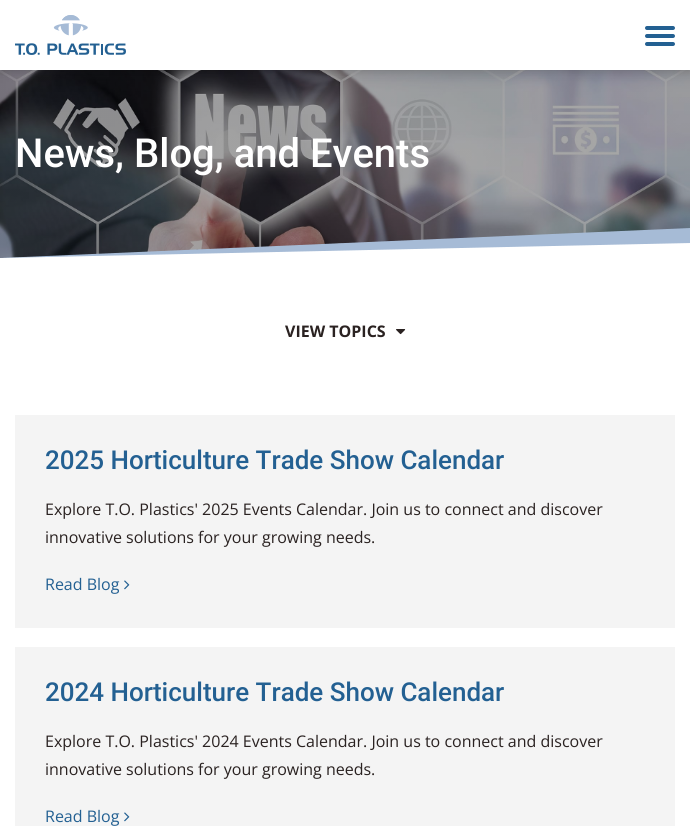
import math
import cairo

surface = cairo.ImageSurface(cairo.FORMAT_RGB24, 690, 826)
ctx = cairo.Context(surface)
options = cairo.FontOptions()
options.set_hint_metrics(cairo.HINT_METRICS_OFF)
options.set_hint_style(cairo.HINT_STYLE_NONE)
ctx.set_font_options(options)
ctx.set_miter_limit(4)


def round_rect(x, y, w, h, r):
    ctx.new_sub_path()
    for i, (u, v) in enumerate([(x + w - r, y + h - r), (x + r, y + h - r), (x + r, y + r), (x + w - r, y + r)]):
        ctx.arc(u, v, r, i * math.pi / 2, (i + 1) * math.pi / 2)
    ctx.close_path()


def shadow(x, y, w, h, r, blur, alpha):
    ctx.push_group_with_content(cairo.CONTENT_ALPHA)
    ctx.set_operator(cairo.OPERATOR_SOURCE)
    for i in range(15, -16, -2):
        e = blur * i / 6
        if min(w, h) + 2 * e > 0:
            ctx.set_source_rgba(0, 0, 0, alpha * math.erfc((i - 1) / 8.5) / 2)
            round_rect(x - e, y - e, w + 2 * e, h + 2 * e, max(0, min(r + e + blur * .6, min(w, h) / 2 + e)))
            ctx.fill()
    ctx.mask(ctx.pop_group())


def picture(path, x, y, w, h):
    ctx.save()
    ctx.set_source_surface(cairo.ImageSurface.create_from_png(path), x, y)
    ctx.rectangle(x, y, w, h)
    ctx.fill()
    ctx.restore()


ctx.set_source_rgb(1, 1, 1)
ctx.paint()
picture("img2.png", 0, 70, 690, 188)
ctx.set_source_rgb(0, 0, 0)
shadow(0, 0, 690, 70, 0, 5, 0.25)
ctx.set_source_rgb(1, 1, 1)
ctx.rectangle(0, 0, 690, 70)
ctx.fill()
picture("img1.png", 15, 15, 111, 40)
ctx.set_source_rgb(0.137, 0.376, 0.573)
round_rect(645, 26, 30, 4, 2)
ctx.fill()
round_rect(645, 34, 30, 4, 2)
ctx.fill()
round_rect(645, 42, 30, 4, 2)
ctx.fill()
ctx.select_font_face("Roboto Medium")
ctx.set_font_size(40)
ctx.set_source_rgb(1, 1, 1)
ctx.move_to(15, 167)
ctx.show_text("News, Blog, and Events")
ctx.set_source_rgb(0.651, 0.733, 0.839)
ctx.new_path()
ctx.move_to(690, 258)
ctx.line_to(0, 258)
ctx.line_to(690, 228)
ctx.close_path()
ctx.fill()
ctx.set_source_rgb(1, 1, 1)
ctx.new_path()
ctx.move_to(690, 258)
ctx.line_to(0, 258)
ctx.line_to(690, 243)
ctx.close_path()
ctx.fill()
ctx.select_font_face("Open Sans", cairo.FONT_SLANT_NORMAL, cairo.FONT_WEIGHT_BOLD)
ctx.set_font_size(16)
ctx.set_source_rgb(0.165, 0.133, 0.129)
ctx.move_to(285, 337)
ctx.show_text("VIEW TOPICS")
picture("img3.png", 396, 329, 10, 6)
ctx.set_source_rgb(0.957, 0.957, 0.957)
ctx.rectangle(15, 415, 660, 213)
ctx.fill()
ctx.select_font_face("Roboto Medium")
ctx.set_font_size(26)
ctx.set_source_rgb(0.137, 0.376, 0.573)
ctx.move_to(45, 469)
ctx.show_text("2025 Horticulture Trade Show Calendar")
ctx.select_font_face("Open Sans")
ctx.set_font_size(16)
ctx.set_source_rgb(0.165, 0.133, 0.129)
ctx.move_to(45, 515)
ctx.show_text("Explore T.O. Plastics' 2025 Events Calendar. Join us to connect and discover")
ctx.move_to(45, 543)
ctx.show_text("innovative solutions for your growing needs.")
ctx.set_source_rgb(0.137, 0.376, 0.573)
ctx.move_to(45, 590)
ctx.show_text("Read Blog")
picture("img4.png", 124, 580, 6, 10)
ctx.set_source_rgb(0.957, 0.957, 0.957)
ctx.rectangle(15, 647, 660, 179)
ctx.fill()
ctx.select_font_face("Roboto Medium")
ctx.set_font_size(26)
ctx.set_source_rgb(0.137, 0.376, 0.573)
ctx.move_to(45, 701)
ctx.show_text("2024 Horticulture Trade Show Calendar")
ctx.select_font_face("Open Sans")
ctx.set_font_size(16)
ctx.set_source_rgb(0.165, 0.133, 0.129)
ctx.move_to(45, 747)
ctx.show_text("Explore T.O. Plastics' 2024 Events Calendar. Join us to connect and discover")
ctx.move_to(45, 775)
ctx.show_text("innovative solutions for your growing needs.")
ctx.set_source_rgb(0.137, 0.376, 0.573)
ctx.move_to(45, 822)
ctx.show_text("Read Blog")
picture("img4.png", 124, 812, 6, 10)
surface.write_to_png("page.png")
